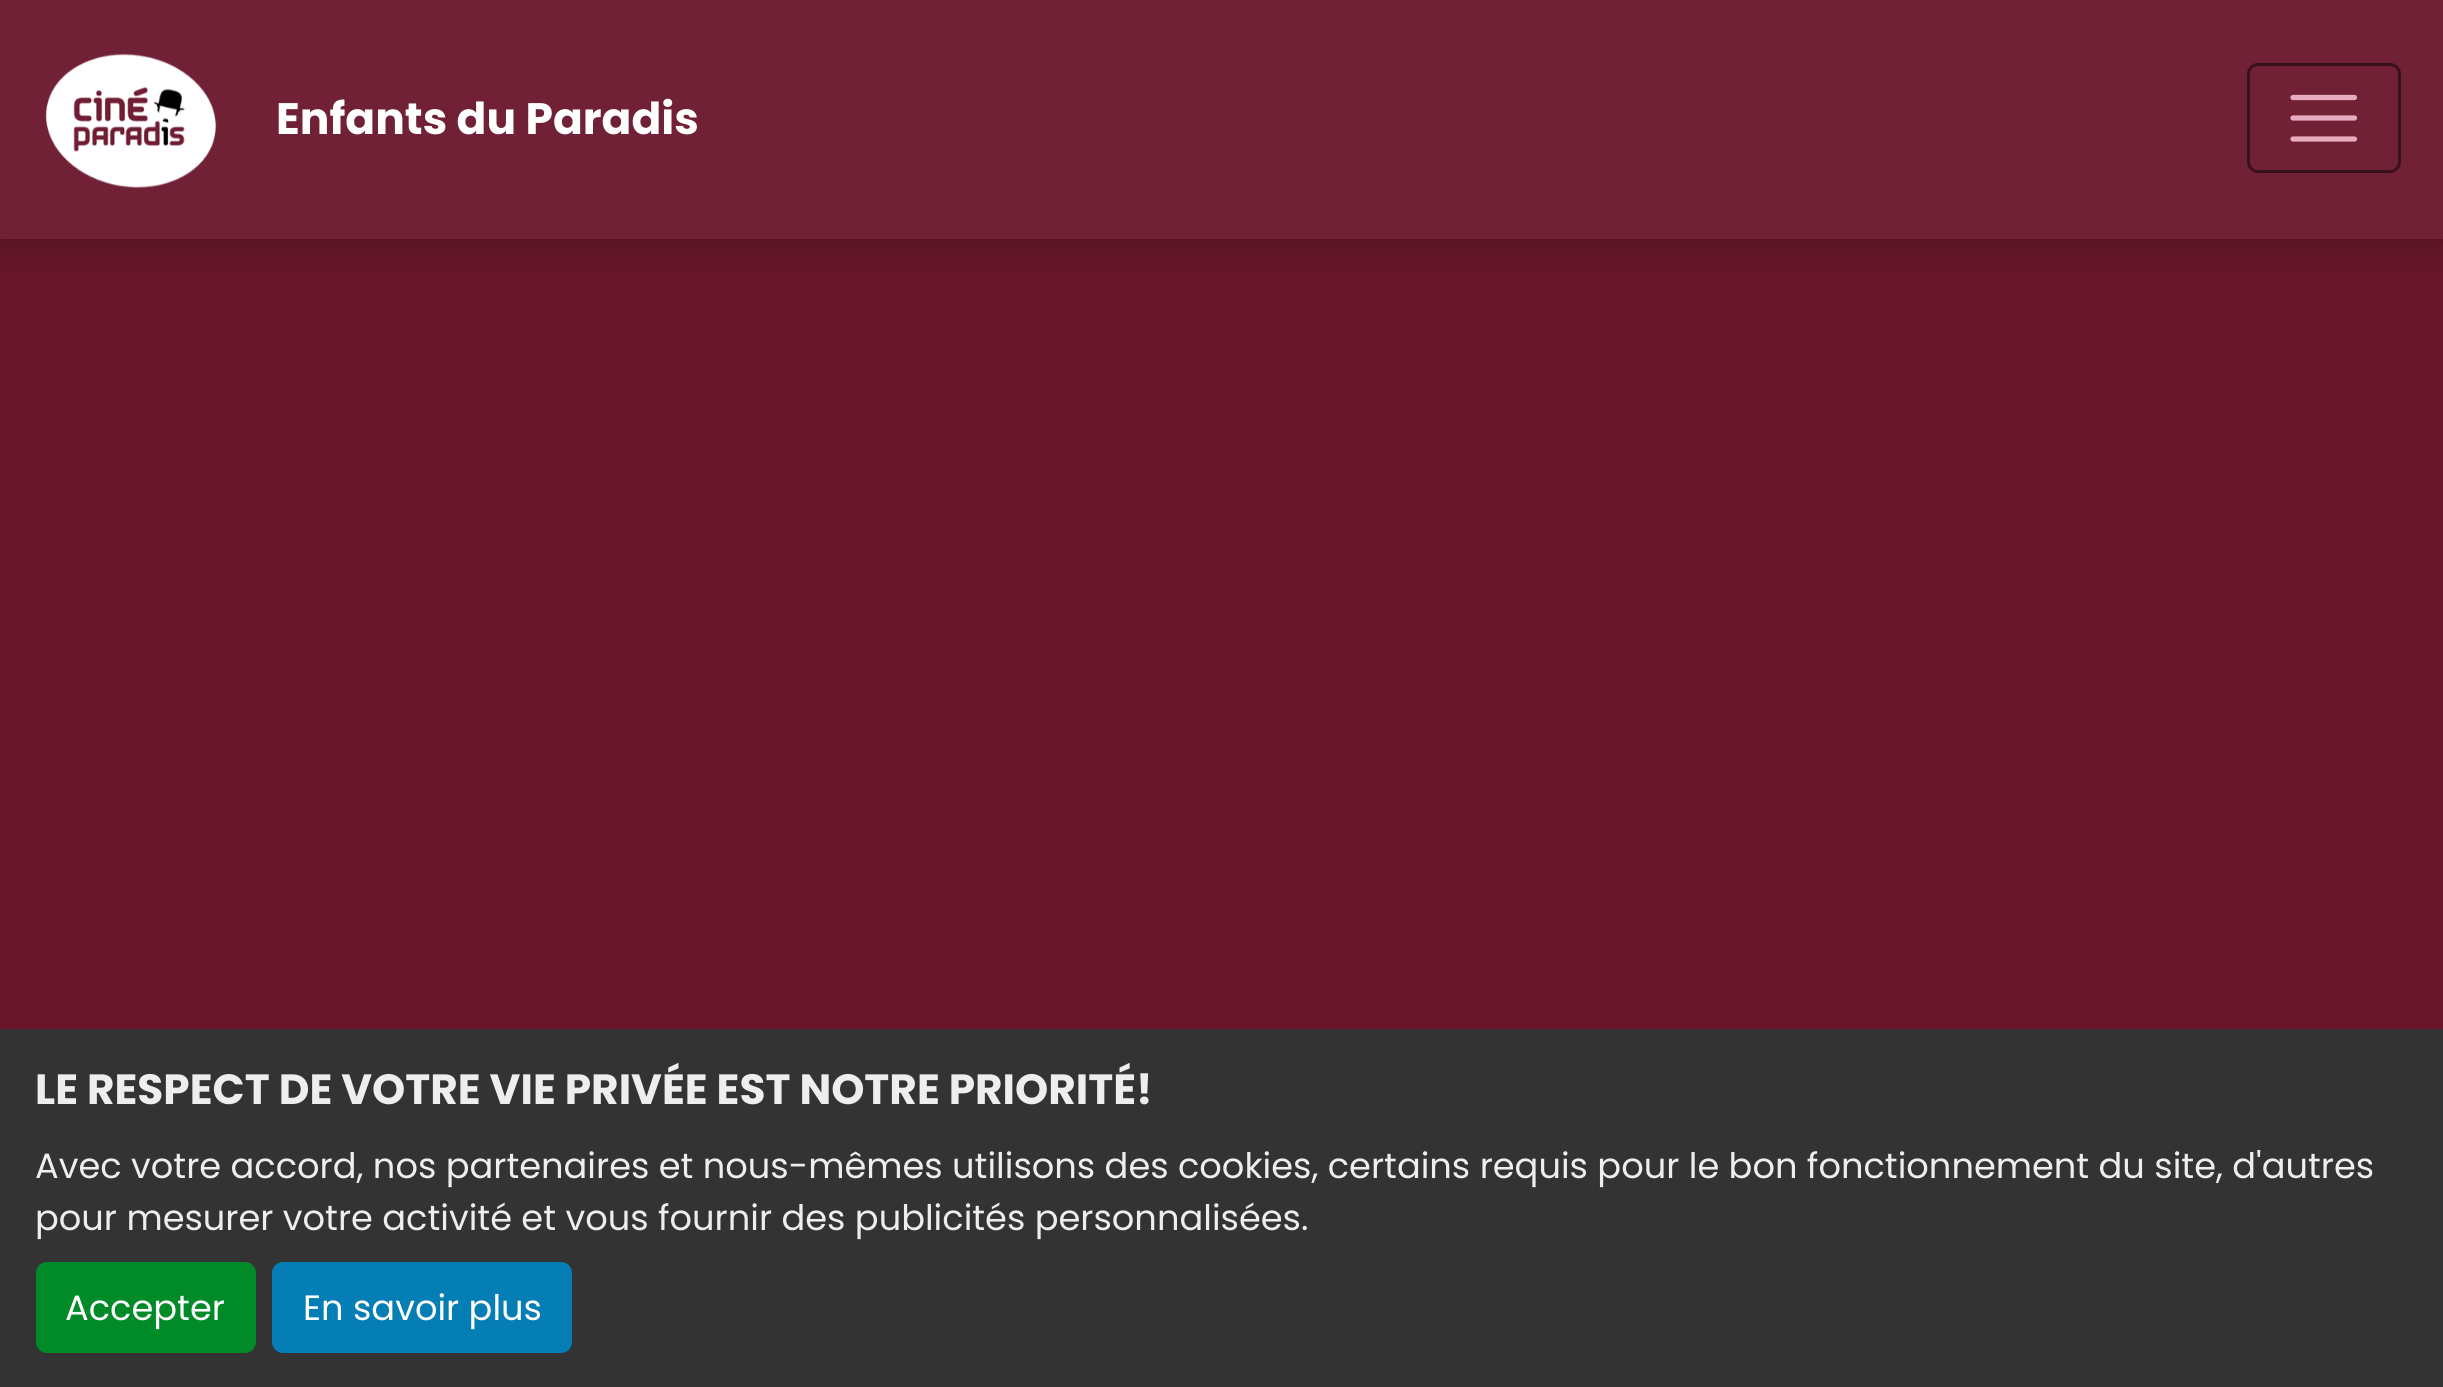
import math
import cairo

surface = cairo.ImageSurface(cairo.FORMAT_RGB24, 2443, 1387)
ctx = cairo.Context(surface)
options = cairo.FontOptions()
options.set_hint_metrics(cairo.HINT_METRICS_OFF)
options.set_hint_style(cairo.HINT_STYLE_NONE)
ctx.set_font_options(options)
ctx.set_miter_limit(4)


def round_rect(x, y, w, h, r):
    ctx.new_sub_path()
    for i, (u, v) in enumerate([(x + w - r, y + h - r), (x + r, y + h - r), (x + r, y + r), (x + w - r, y + r)]):
        ctx.arc(u, v, r, i * math.pi / 2, (i + 1) * math.pi / 2)
    ctx.close_path()


def shadow(x, y, w, h, r, blur, alpha):
    ctx.push_group_with_content(cairo.CONTENT_ALPHA)
    ctx.set_operator(cairo.OPERATOR_SOURCE)
    for i in range(15, -16, -2):
        e = blur * i / 6
        if min(w, h) + 2 * e > 0:
            ctx.set_source_rgba(0, 0, 0, alpha * math.erfc((i - 1) / 8.5) / 2)
            round_rect(x - e, y - e, w + 2 * e, h + 2 * e, max(0, min(r + e + blur * .6, min(w, h) / 2 + e)))
            ctx.fill()
    ctx.mask(ctx.pop_group())


def picture(path, x, y, w, h):
    ctx.save()
    ctx.set_source_surface(cairo.ImageSurface.create_from_png(path), x, y)
    ctx.rectangle(x, y, w, h)
    ctx.fill()
    ctx.restore()


ctx.set_source_rgb(0.412, 0.086, 0.169)
ctx.paint()
ctx.set_source_rgb(0, 0, 0)
shadow(0, 6, 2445, 239, 0, 18, 0.25)
ctx.set_source_rgb(0.443, 0.129, 0.208)
ctx.rectangle(0, 0, 2443, 239)
ctx.fill()
picture("img1.png", 45, 54, 172, 134)
ctx.select_font_face("Poppins", cairo.FONT_SLANT_NORMAL, cairo.FONT_WEIGHT_BOLD)
ctx.set_font_size(44)
ctx.set_source_rgb(1, 1, 1)
ctx.move_to(276, 134)
ctx.show_text("Enfants du Paradis")
round_rect(2248.5, 64.5, 151, 107, 9.5)
ctx.set_source_rgb(0.224, 0.067, 0.106)
ctx.set_line_width(3)
ctx.stroke()
ctx.new_path()
ctx.move_to(2293, 97.5)
ctx.line_to(2354.5, 97.5)
ctx.move_to(2293, 118)
ctx.line_to(2354.5, 118)
ctx.move_to(2293, 139)
ctx.line_to(2354.5, 139)
ctx.set_source_rgb(0.906, 0.667, 0.745)
ctx.set_line_width(5.2)
ctx.set_line_cap(cairo.LINE_CAP_ROUND)
ctx.stroke()
ctx.set_source_rgb(0.2, 0.2, 0.2)
ctx.rectangle(0, 1029, 2443, 358)
ctx.fill()
ctx.set_font_size(42.25)
ctx.set_source_rgb(0.933, 0.933, 0.933)
ctx.move_to(35, 1104)
ctx.show_text("LE RESPECT DE VOTRE VIE PRIVÉE EST NOTRE PRIORITÉ!")
ctx.select_font_face("Poppins")
ctx.set_font_size(35.2)
ctx.move_to(35, 1178)
ctx.show_text("Avec votre accord, nos partenaires et nous-mêmes utilisons des cookies, certains requis pour le bon fonctionnement du site, d'autres")
ctx.move_to(35, 1230)
ctx.show_text("pour mesurer votre activité et vous fournir des publicités personnalisées.")
ctx.set_source_rgb(0, 0.541, 0.157)
round_rect(36, 1262, 220, 91, 11)
ctx.fill()
ctx.set_source_rgb(1, 1, 1)
ctx.move_to(65, 1320)
ctx.show_text("Accepter")
ctx.set_source_rgb(0.02, 0.494, 0.714)
round_rect(272, 1262, 300, 91, 11)
ctx.fill()
ctx.set_source_rgb(1, 1, 1)
ctx.move_to(303, 1320)
ctx.show_text("En savoir plus")
surface.write_to_png("page.png")
